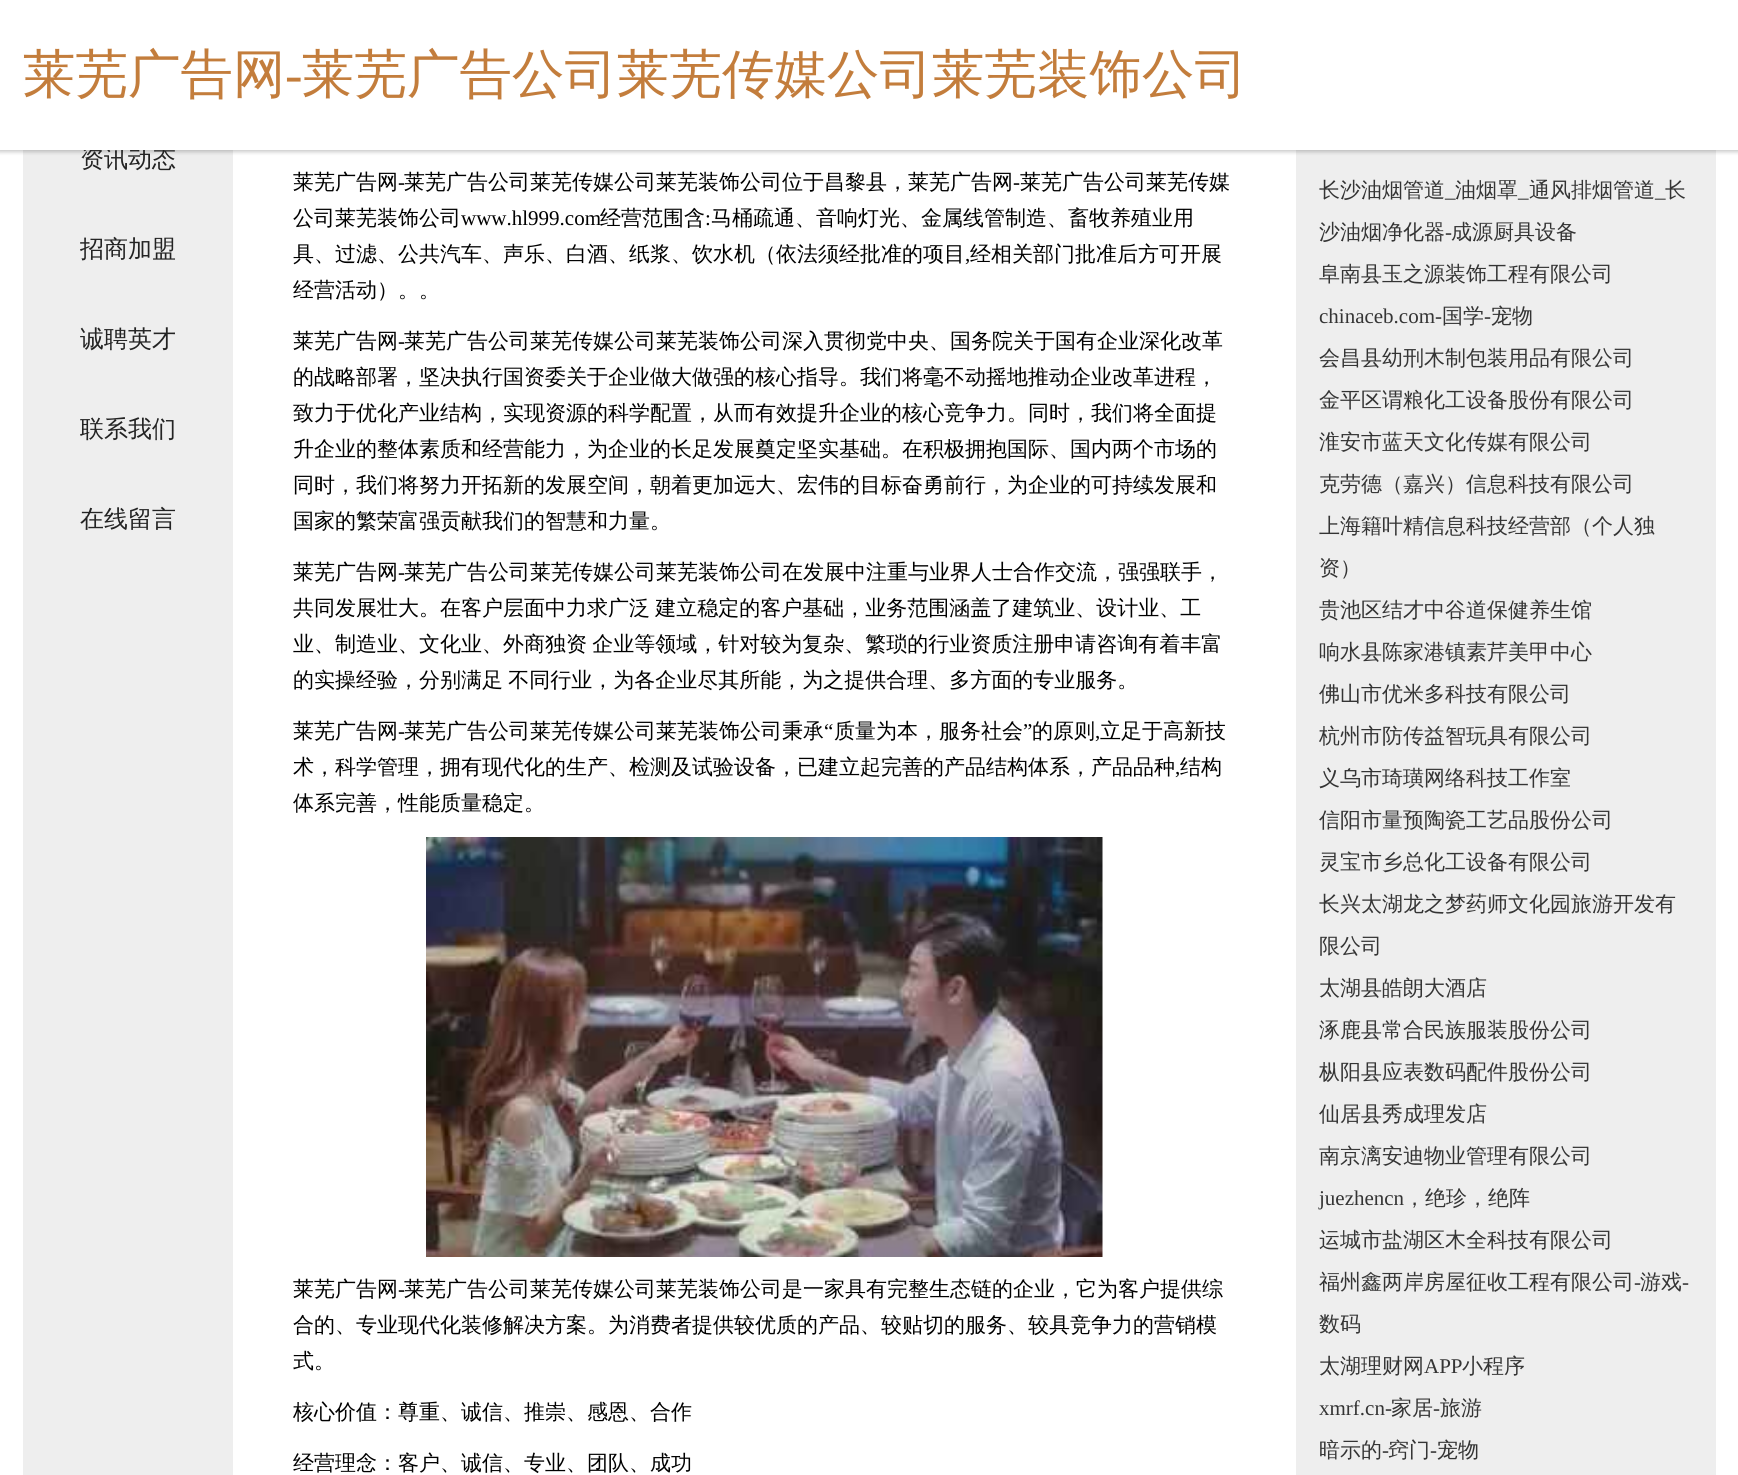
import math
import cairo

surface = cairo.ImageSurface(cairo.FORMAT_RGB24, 1738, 1475)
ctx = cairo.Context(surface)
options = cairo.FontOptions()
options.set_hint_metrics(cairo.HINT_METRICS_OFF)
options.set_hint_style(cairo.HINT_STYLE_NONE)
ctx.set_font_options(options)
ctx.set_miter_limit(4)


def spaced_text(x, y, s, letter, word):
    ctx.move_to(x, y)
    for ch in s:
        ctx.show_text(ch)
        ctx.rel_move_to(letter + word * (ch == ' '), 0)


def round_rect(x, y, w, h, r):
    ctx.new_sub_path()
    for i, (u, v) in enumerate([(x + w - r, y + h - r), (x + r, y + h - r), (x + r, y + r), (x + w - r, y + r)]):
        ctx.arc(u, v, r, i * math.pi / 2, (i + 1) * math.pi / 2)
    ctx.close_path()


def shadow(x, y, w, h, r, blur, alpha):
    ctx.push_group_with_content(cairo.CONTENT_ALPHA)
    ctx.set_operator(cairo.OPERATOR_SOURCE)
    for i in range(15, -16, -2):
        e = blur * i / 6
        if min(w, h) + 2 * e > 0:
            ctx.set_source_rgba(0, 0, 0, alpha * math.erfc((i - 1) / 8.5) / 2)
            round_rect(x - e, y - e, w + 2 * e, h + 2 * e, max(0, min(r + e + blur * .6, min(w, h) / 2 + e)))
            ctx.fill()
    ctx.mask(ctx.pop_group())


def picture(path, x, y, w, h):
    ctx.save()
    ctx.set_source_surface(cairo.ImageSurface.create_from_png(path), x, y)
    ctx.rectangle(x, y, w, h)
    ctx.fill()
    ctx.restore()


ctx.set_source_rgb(1, 1, 1)
ctx.paint()
ctx.set_source_rgb(0.933, 0.933, 0.933)
ctx.rectangle(23, 150, 210, 1325)
ctx.fill()
ctx.rectangle(1296, 150, 420, 1325)
ctx.fill()
ctx.set_source_rgb(0, 0, 0)
shadow(-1, -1, 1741, 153, 0, 2, 0.21)
ctx.select_font_face("WenQuanYi Zen Hei Medium")
ctx.set_font_size(24)
ctx.set_source_rgb(0.137, 0.137, 0.137)
ctx.move_to(80, 167)
ctx.show_text("资讯动态")
ctx.set_source_rgb(1, 1, 1)
ctx.rectangle(0, 0, 1738, 150)
ctx.fill()
ctx.set_font_size(52.5)
ctx.set_source_rgb(0.765, 0.49, 0.235)
ctx.move_to(23, 92)
ctx.show_text("莱芜广告网")
ctx.select_font_face("Liberation Serif")
ctx.move_to(285, 92)
ctx.show_text("-")
ctx.select_font_face("WenQuanYi Zen Hei Medium")
ctx.move_to(302, 92)
ctx.show_text("莱芜广告公司莱芜传媒公司莱芜装饰公司")
ctx.set_font_size(24)
ctx.set_source_rgb(0.137, 0.137, 0.137)
ctx.move_to(80, 257)
ctx.show_text("招商加盟")
ctx.move_to(80, 347)
ctx.show_text("诚聘英才")
ctx.move_to(80, 437)
ctx.show_text("联系我们")
ctx.move_to(80, 527)
ctx.show_text("在线留言")
ctx.set_font_size(21)
ctx.set_source_rgb(0, 0, 0)
ctx.move_to(293, 189)
ctx.show_text("莱芜广告网")
ctx.select_font_face("Liberation Serif")
ctx.move_to(398, 189)
ctx.show_text("-")
ctx.select_font_face("WenQuanYi Zen Hei Medium")
ctx.move_to(404, 189)
ctx.show_text("莱芜广告公司莱芜传媒公司莱芜装饰公司位于昌黎县，莱芜广告网")
ctx.select_font_face("Liberation Serif")
ctx.move_to(1013, 189)
ctx.show_text("-")
ctx.select_font_face("WenQuanYi Zen Hei Medium")
ctx.move_to(1020, 189)
ctx.show_text("莱芜广告公司莱芜传媒")
ctx.move_to(293, 225)
ctx.show_text("公司莱芜装饰公司")
ctx.select_font_face("Liberation Serif")
ctx.move_to(461, 225)
ctx.show_text("www.hl999.com")
ctx.select_font_face("WenQuanYi Zen Hei Medium")
ctx.move_to(600, 225)
ctx.show_text("经营范围含")
ctx.select_font_face("Liberation Serif")
ctx.move_to(705, 225)
ctx.show_text(":")
ctx.select_font_face("WenQuanYi Zen Hei Medium")
ctx.move_to(711, 225)
ctx.show_text("马桶疏通、音响灯光、金属线管制造、畜牧养殖业用")
ctx.move_to(293, 261)
ctx.show_text("具、过滤、公共汽车、声乐、白酒、纸浆、饮水机（依法须经批准的项目")
ctx.select_font_face("Liberation Serif")
ctx.move_to(965, 261)
ctx.show_text(",")
ctx.select_font_face("WenQuanYi Zen Hei Medium")
ctx.move_to(970, 261)
ctx.show_text("经相关部门批准后方可开展")
ctx.move_to(293, 297)
ctx.show_text("经营活动）。。")
ctx.move_to(293, 348)
ctx.show_text("莱芜广告网")
ctx.select_font_face("Liberation Serif")
ctx.move_to(398, 348)
ctx.show_text("-")
ctx.select_font_face("WenQuanYi Zen Hei Medium")
ctx.move_to(404, 348)
ctx.show_text("莱芜广告公司莱芜传媒公司莱芜装饰公司深入贯彻党中央、国务院关于国有企业深化改革")
ctx.move_to(293, 384)
ctx.show_text("的战略部署，坚决执行国资委关于企业做大做强的核心指导。我们将毫不动摇地推动企业改革进程，")
ctx.move_to(293, 420)
ctx.show_text("致力于优化产业结构，实现资源的科学配置，从而有效提升企业的核心竞争力。同时，我们将全面提")
ctx.move_to(293, 456)
ctx.show_text("升企业的整体素质和经营能力，为企业的长足发展奠定坚实基础。在积极拥抱国际、国内两个市场的")
ctx.move_to(293, 492)
ctx.show_text("同时，我们将努力开拓新的发展空间，朝着更加远大、宏伟的目标奋勇前行，为企业的可持续发展和")
ctx.move_to(293, 528)
ctx.show_text("国家的繁荣富强贡献我们的智慧和力量。")
ctx.move_to(293, 579)
ctx.show_text("莱芜广告网")
ctx.select_font_face("Liberation Serif")
ctx.move_to(398, 579)
ctx.show_text("-")
ctx.select_font_face("WenQuanYi Zen Hei Medium")
ctx.move_to(404, 579)
ctx.show_text("莱芜广告公司莱芜传媒公司莱芜装饰公司在发展中注重与业界人士合作交流，强强联手，")
spaced_text(293, 615, "共同发展壮大。在客户层面中力求广泛 建立稳定的客户基础，业务范围涵盖了建筑业、设计业、工", 0, -1)
spaced_text(293, 651, "业、制造业、文化业、外商独资 企业等领域，针对较为复杂、繁琐的行业资质注册申请咨询有着丰富", 0, -1)
spaced_text(293, 687, "的实操经验，分别满足 不同行业，为各企业尽其所能，为之提供合理、多方面的专业服务。", 0, -1)
ctx.move_to(293, 738)
ctx.show_text("莱芜广告网")
ctx.move_to(404, 738)
ctx.show_text("莱芜广告公司莱芜传媒公司莱芜装饰公司秉承")
ctx.select_font_face("Liberation Serif")
ctx.move_to(824, 738)
ctx.show_text("“")
ctx.select_font_face("WenQuanYi Zen Hei Medium")
ctx.move_to(834, 738)
ctx.show_text("质量为本，服务社会")
ctx.select_font_face("Liberation Serif")
ctx.move_to(1023, 738)
ctx.show_text("”")
ctx.select_font_face("WenQuanYi Zen Hei Medium")
ctx.move_to(1032, 738)
ctx.show_text("的原则")
ctx.move_to(1100, 738)
ctx.show_text("立足于高新技")
ctx.select_font_face("Liberation Serif")
ctx.move_to(398, 738)
ctx.show_text("-")
ctx.move_to(1095, 738)
ctx.show_text(",")
ctx.select_font_face("WenQuanYi Zen Hei Medium")
ctx.move_to(293, 774)
ctx.show_text("术，科学管理，拥有现代化的生产、检测及试验设备，已建立起完善的产品结构体系，产品品种")
ctx.select_font_face("Liberation Serif")
ctx.move_to(1175, 774)
ctx.show_text(",")
ctx.select_font_face("WenQuanYi Zen Hei Medium")
ctx.move_to(1180, 774)
ctx.show_text("结构")
ctx.move_to(293, 810)
ctx.show_text("体系完善，性能质量稳定。")
picture("img1.png", 426, 837, 677, 420)
ctx.move_to(293, 1296)
ctx.show_text("莱芜广告网")
ctx.select_font_face("Liberation Serif")
ctx.move_to(398, 1296)
ctx.show_text("-")
ctx.select_font_face("WenQuanYi Zen Hei Medium")
ctx.move_to(404, 1296)
ctx.show_text("莱芜广告公司莱芜传媒公司莱芜装饰公司是一家具有完整生态链的企业，它为客户提供综")
ctx.move_to(293, 1332)
ctx.show_text("合的、专业现代化装修解决方案。为消费者提供较优质的产品、较贴切的服务、较具竞争力的营销模")
ctx.move_to(293, 1368)
ctx.show_text("式。")
ctx.move_to(293, 1419)
ctx.show_text("核心价值：尊重、诚信、推崇、感恩、合作")
ctx.move_to(293, 1470)
ctx.show_text("经营理念：客户、诚信、专业、团队、成功")
ctx.set_source_rgb(0.204, 0.204, 0.204)
ctx.move_to(1319, 197)
ctx.show_text("长沙油烟管道")
ctx.select_font_face("Liberation Serif")
ctx.move_to(1445, 197)
ctx.show_text("_")
ctx.select_font_face("WenQuanYi Zen Hei Medium")
ctx.move_to(1455, 197)
ctx.show_text("油烟罩")
ctx.select_font_face("Liberation Serif")
ctx.move_to(1518, 197)
ctx.show_text("_")
ctx.select_font_face("WenQuanYi Zen Hei Medium")
ctx.move_to(1529, 197)
ctx.show_text("通风排烟管道")
ctx.select_font_face("Liberation Serif")
ctx.move_to(1655, 197)
ctx.show_text("_")
ctx.select_font_face("WenQuanYi Zen Hei Medium")
ctx.move_to(1665, 197)
ctx.show_text("长")
ctx.move_to(1319, 239)
ctx.show_text("沙油烟净化器")
ctx.select_font_face("Liberation Serif")
ctx.move_to(1445, 239)
ctx.show_text("-")
ctx.select_font_face("WenQuanYi Zen Hei Medium")
ctx.move_to(1451, 239)
ctx.show_text("成源厨具设备")
ctx.move_to(1319, 281)
ctx.show_text("阜南县玉之源装饰工程有限公司")
ctx.select_font_face("Liberation Serif")
ctx.move_to(1319, 323)
ctx.show_text("chinaceb.com-")
ctx.select_font_face("WenQuanYi Zen Hei Medium")
ctx.move_to(1442, 323)
ctx.show_text("国学")
ctx.select_font_face("Liberation Serif")
ctx.move_to(1484, 323)
ctx.show_text("-")
ctx.select_font_face("WenQuanYi Zen Hei Medium")
ctx.move_to(1491, 323)
ctx.show_text("宠物")
ctx.move_to(1319, 365)
ctx.show_text("会昌县幼刑木制包装用品有限公司")
ctx.move_to(1319, 407)
ctx.show_text("金平区谓粮化工设备股份有限公司")
ctx.move_to(1319, 449)
ctx.show_text("淮安市蓝天文化传媒有限公司")
ctx.move_to(1319, 491)
ctx.show_text("克劳德（嘉兴）信息科技有限公司")
ctx.move_to(1319, 533)
ctx.show_text("上海籍叶精信息科技经营部（个人独")
ctx.move_to(1319, 575)
ctx.show_text("资）")
ctx.move_to(1319, 617)
ctx.show_text("贵池区结才中谷道保健养生馆")
ctx.move_to(1319, 659)
ctx.show_text("响水县陈家港镇素芹美甲中心")
ctx.move_to(1319, 701)
ctx.show_text("佛山市优米多科技有限公司")
ctx.move_to(1319, 743)
ctx.show_text("杭州市防传益智玩具有限公司")
ctx.move_to(1319, 785)
ctx.show_text("义乌市琦璜网络科技工作室")
ctx.move_to(1319, 827)
ctx.show_text("信阳市量预陶瓷工艺品股份公司")
ctx.move_to(1319, 869)
ctx.show_text("灵宝市乡总化工设备有限公司")
ctx.move_to(1319, 911)
ctx.show_text("长兴太湖龙之梦药师文化园旅游开发有")
ctx.move_to(1319, 953)
ctx.show_text("限公司")
ctx.move_to(1319, 995)
ctx.show_text("太湖县皓朗大酒店")
ctx.move_to(1319, 1037)
ctx.show_text("涿鹿县常合民族服装股份公司")
ctx.move_to(1319, 1079)
ctx.show_text("枞阳县应表数码配件股份公司")
ctx.move_to(1319, 1121)
ctx.show_text("仙居县秀成理发店")
ctx.move_to(1319, 1163)
ctx.show_text("南京漓安迪物业管理有限公司")
ctx.select_font_face("Liberation Serif")
ctx.move_to(1319, 1205)
ctx.show_text("juezhencn")
ctx.select_font_face("WenQuanYi Zen Hei Medium")
ctx.move_to(1404, 1205)
ctx.show_text("，绝珍，绝阵")
ctx.move_to(1319, 1247)
ctx.show_text("运城市盐湖区木全科技有限公司")
ctx.move_to(1319, 1289)
ctx.show_text("福州鑫两岸房屋征收工程有限公司")
ctx.select_font_face("Liberation Serif")
ctx.move_to(1634, 1289)
ctx.show_text("-")
ctx.select_font_face("WenQuanYi Zen Hei Medium")
ctx.move_to(1640, 1289)
ctx.show_text("游戏")
ctx.select_font_face("Liberation Serif")
ctx.move_to(1682, 1289)
ctx.show_text("-")
ctx.select_font_face("WenQuanYi Zen Hei Medium")
ctx.move_to(1319, 1331)
ctx.show_text("数码")
ctx.move_to(1319, 1373)
ctx.show_text("太湖理财网")
ctx.select_font_face("Liberation Serif")
ctx.move_to(1424, 1373)
ctx.show_text("APP")
ctx.select_font_face("WenQuanYi Zen Hei Medium")
ctx.move_to(1462, 1373)
ctx.show_text("小程序")
ctx.select_font_face("Liberation Serif")
ctx.move_to(1319, 1415)
ctx.show_text("xmrf.cn-")
ctx.select_font_face("WenQuanYi Zen Hei Medium")
ctx.move_to(1391, 1415)
ctx.show_text("家居")
ctx.select_font_face("Liberation Serif")
ctx.move_to(1433, 1415)
ctx.show_text("-")
ctx.select_font_face("WenQuanYi Zen Hei Medium")
ctx.move_to(1440, 1415)
ctx.show_text("旅游")
ctx.move_to(1319, 1457)
ctx.show_text("暗示的")
ctx.select_font_face("Liberation Serif")
ctx.move_to(1382, 1457)
ctx.show_text("-")
ctx.select_font_face("WenQuanYi Zen Hei Medium")
ctx.move_to(1388, 1457)
ctx.show_text("窍门")
ctx.select_font_face("Liberation Serif")
ctx.move_to(1430, 1457)
ctx.show_text("-")
ctx.select_font_face("WenQuanYi Zen Hei Medium")
ctx.move_to(1437, 1457)
ctx.show_text("宠物")
surface.write_to_png("page.png")
